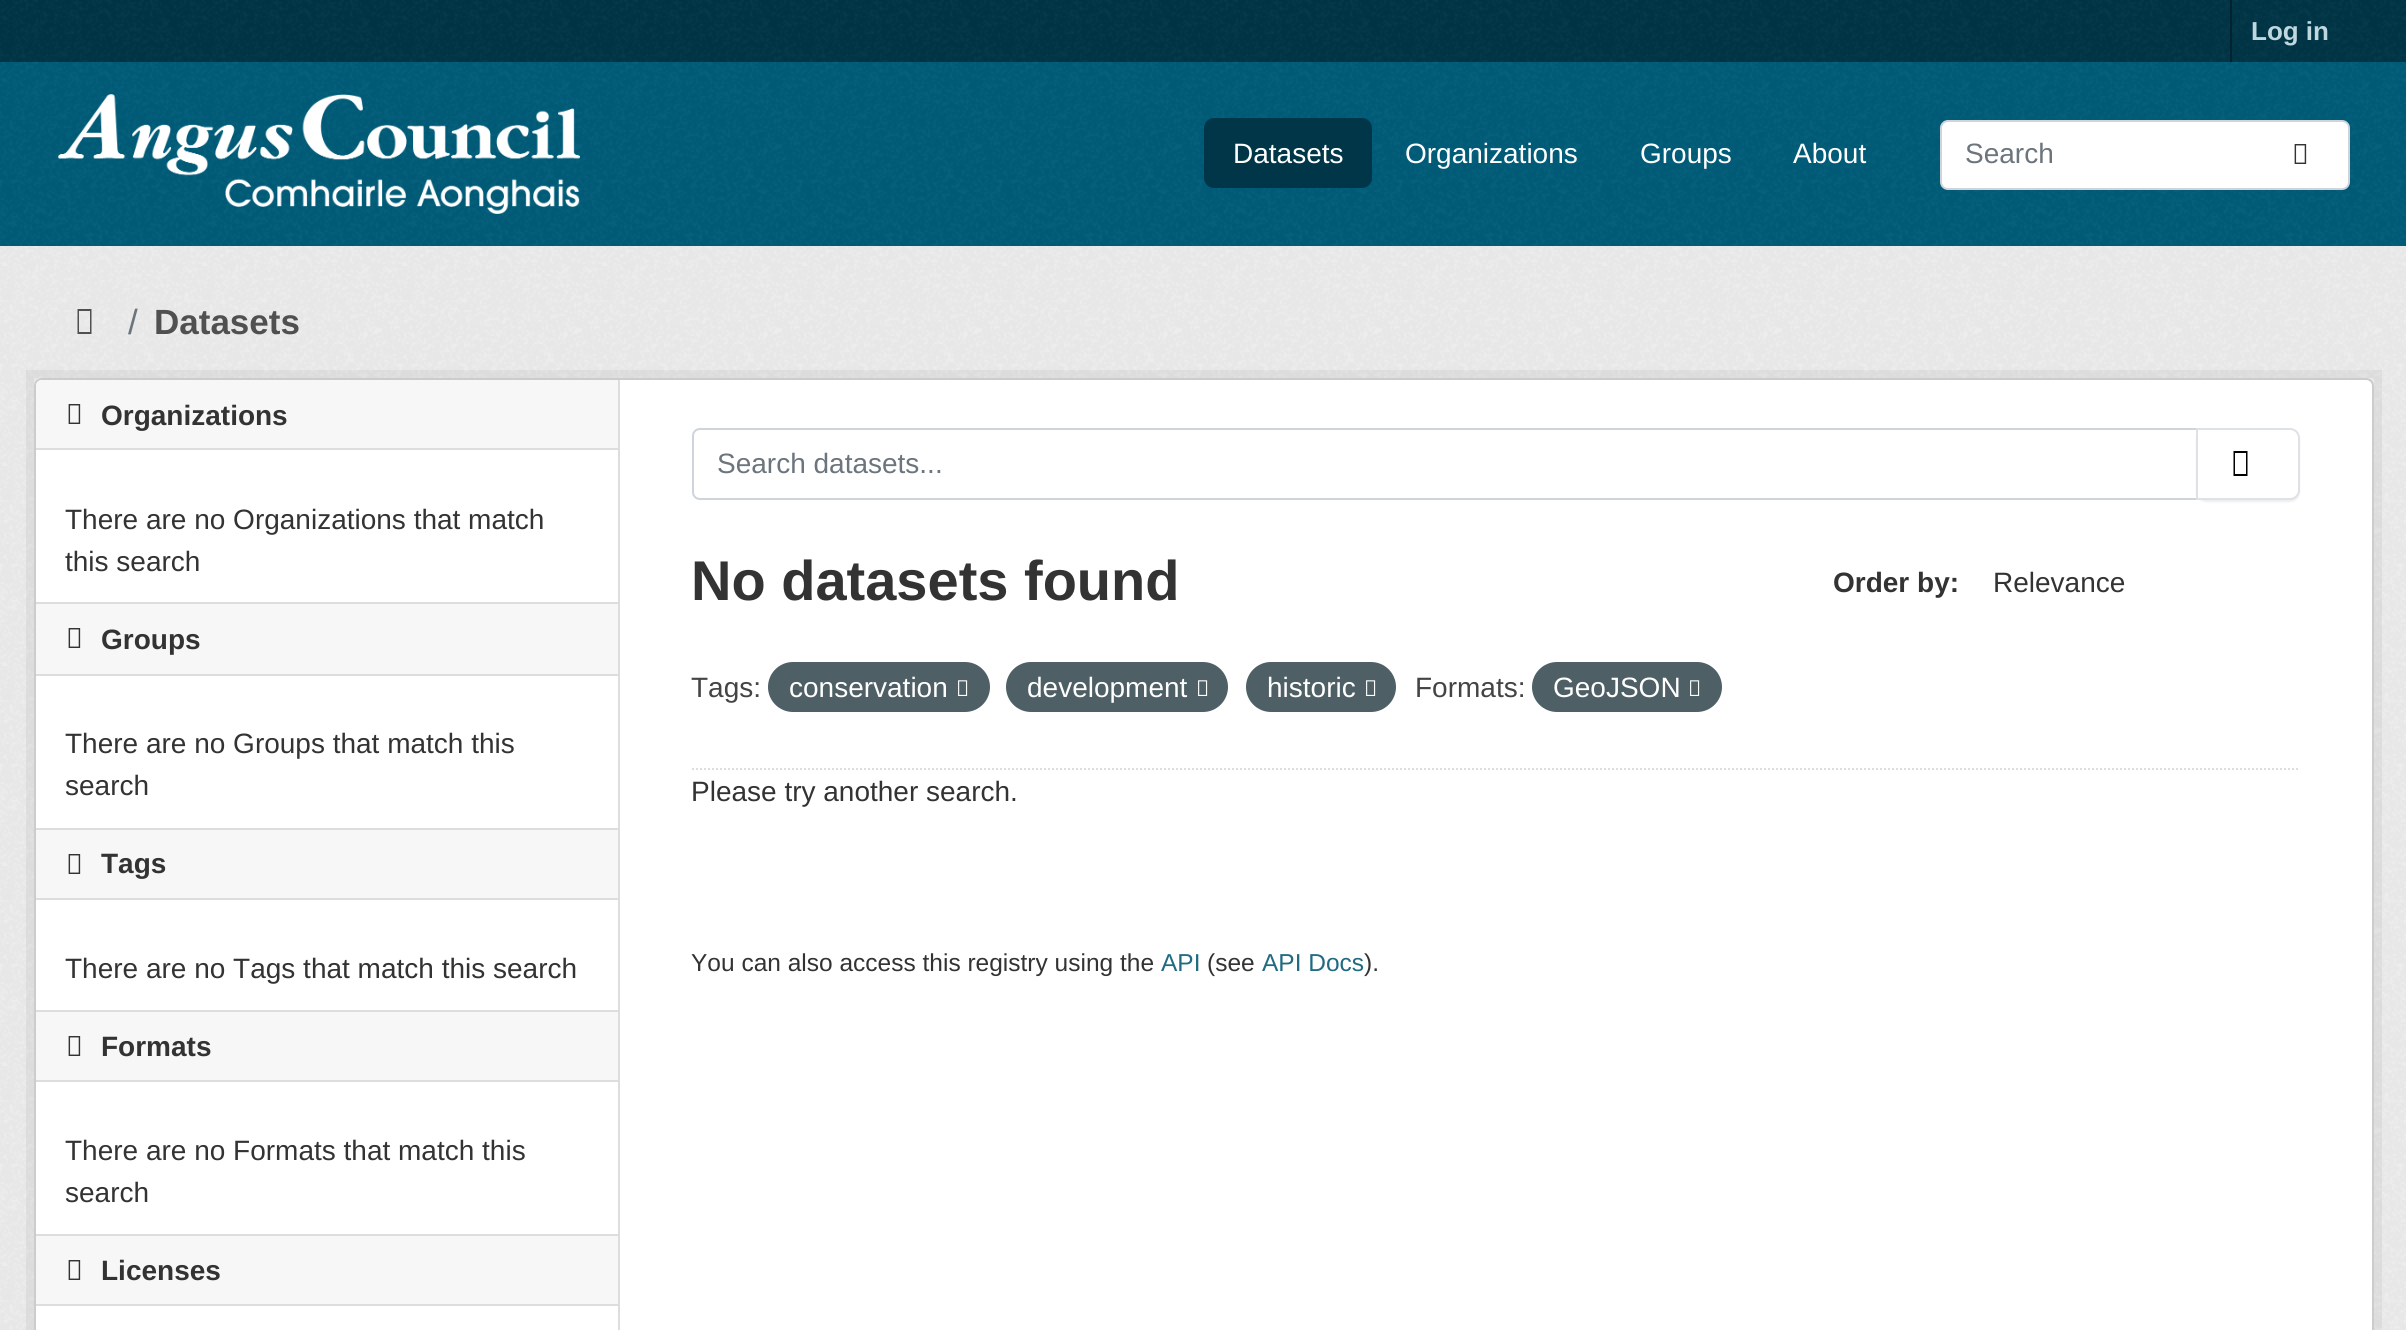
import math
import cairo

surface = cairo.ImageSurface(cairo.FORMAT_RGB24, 2406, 1330)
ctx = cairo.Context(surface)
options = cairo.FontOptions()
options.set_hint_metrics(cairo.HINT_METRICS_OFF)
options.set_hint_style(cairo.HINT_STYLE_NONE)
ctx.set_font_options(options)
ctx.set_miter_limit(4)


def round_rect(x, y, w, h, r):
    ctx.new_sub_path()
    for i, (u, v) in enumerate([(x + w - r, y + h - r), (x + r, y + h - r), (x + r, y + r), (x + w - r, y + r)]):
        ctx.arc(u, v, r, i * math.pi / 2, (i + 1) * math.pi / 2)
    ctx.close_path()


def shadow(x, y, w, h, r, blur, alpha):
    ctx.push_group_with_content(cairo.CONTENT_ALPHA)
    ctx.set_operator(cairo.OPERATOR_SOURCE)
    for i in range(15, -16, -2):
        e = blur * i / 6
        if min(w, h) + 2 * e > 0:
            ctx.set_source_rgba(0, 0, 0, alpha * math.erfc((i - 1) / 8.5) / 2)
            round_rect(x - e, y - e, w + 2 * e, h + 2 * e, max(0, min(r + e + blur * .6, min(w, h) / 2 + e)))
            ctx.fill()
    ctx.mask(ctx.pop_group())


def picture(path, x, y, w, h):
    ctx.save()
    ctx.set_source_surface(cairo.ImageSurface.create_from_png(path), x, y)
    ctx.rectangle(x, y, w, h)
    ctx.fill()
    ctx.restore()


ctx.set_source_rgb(0, 0.212, 0.278)
ctx.paint()
picture("img1.png", 0, 0, 2406, 62)
ctx.set_source_rgb(0, 0.137, 0.18)
ctx.rectangle(2230, 0, 2, 62)
ctx.fill()
ctx.select_font_face("Liberation Sans", cairo.FONT_SLANT_NORMAL, cairo.FONT_WEIGHT_BOLD)
ctx.set_font_size(26)
ctx.set_source_rgb(0.749, 0.843, 0.871)
ctx.move_to(2251, 40)
ctx.show_text("Log in")
ctx.set_source_rgb(0, 0.365, 0.478)
ctx.rectangle(0, 62, 2406, 184)
ctx.fill()
picture("img2.png", 0, 62, 2406, 184)
picture("img3.png", 58, 94, 522, 120)
ctx.set_source_rgb(0, 0.212, 0.278)
round_rect(1204, 118, 168, 70, 10)
ctx.fill()
ctx.select_font_face("Liberation Sans")
ctx.set_font_size(28)
ctx.set_source_rgb(1, 1, 1)
ctx.move_to(1233, 163)
ctx.show_text("Datasets")
ctx.move_to(1405, 163)
ctx.show_text("Organizations")
ctx.move_to(1640, 163)
ctx.show_text("Groups")
ctx.move_to(1793, 163)
ctx.show_text("About")
round_rect(1941, 121, 408, 68, 7)
ctx.fill_preserve()
ctx.set_source_rgb(0.808, 0.831, 0.855)
ctx.stroke()
ctx.set_source_rgb(0.424, 0.459, 0.49)
ctx.move_to(1965, 163)
ctx.show_text("Search")
picture("img4.png", 2294, 144, 13, 20)
ctx.set_source_rgb(0.933, 0.933, 0.933)
ctx.rectangle(0, 246, 2406, 1084)
ctx.fill()
picture("img5.png", 0, 246, 2406, 1084)
ctx.set_source_rgb(0.314, 0.314, 0.314)
ctx.new_path()
ctx.move_to(77.5, 334)
ctx.line_to(77.5, 309)
ctx.line_to(91.5, 309)
ctx.line_to(91.5, 334)
ctx.close_path()
ctx.move_to(79, 332)
ctx.line_to(90, 332)
ctx.line_to(90, 311)
ctx.line_to(79, 311)
ctx.close_path()
ctx.fill()
ctx.set_font_size(35)
ctx.set_source_rgb(0.424, 0.459, 0.49)
ctx.move_to(128, 334)
ctx.show_text("/")
ctx.select_font_face("Liberation Sans", cairo.FONT_SLANT_NORMAL, cairo.FONT_WEIGHT_BOLD)
ctx.set_source_rgb(0.314, 0.314, 0.314)
ctx.move_to(154, 334)
ctx.show_text("Datasets")
ctx.rectangle(30, 374, 2348, 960)
ctx.set_source_rgba(0, 0, 0, 0.05)
ctx.set_line_width(8)
ctx.stroke()
ctx.set_source_rgb(1, 1, 1)
round_rect(35, 379, 2338, 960, 7)
ctx.fill_preserve()
ctx.set_source_rgb(0.8, 0.8, 0.8)
ctx.set_line_width(2)
ctx.stroke()
ctx.set_source_rgb(0.965, 0.965, 0.965)
ctx.new_path()
ctx.move_to(42, 380)
ctx.line_to(618, 380)
ctx.line_to(618, 450)
ctx.line_to(36, 450)
ctx.line_to(36, 386)
ctx.curve_to(36, 382.5, 38.5, 380, 42, 380)
ctx.close_path()
ctx.fill()
ctx.set_source_rgb(0.867, 0.867, 0.867)
ctx.rectangle(36, 448, 582, 2)
ctx.fill()
picture("img6.png", 68, 404, 13, 20)
ctx.set_font_size(28)
ctx.set_source_rgb(0.2, 0.2, 0.2)
ctx.move_to(101, 425)
ctx.show_text("Organizations")
ctx.select_font_face("Liberation Sans")
ctx.move_to(65, 529)
ctx.show_text("There are no Organizations that match")
ctx.move_to(65, 571)
ctx.show_text("this search")
ctx.set_source_rgb(0.965, 0.965, 0.965)
ctx.rectangle(36, 604, 582, 70)
ctx.fill()
ctx.set_source_rgb(0.867, 0.867, 0.867)
ctx.rectangle(36, 602, 582, 2)
ctx.fill()
ctx.rectangle(36, 674, 582, 2)
ctx.fill()
picture("img6.png", 68, 628, 13, 20)
ctx.select_font_face("Liberation Sans", cairo.FONT_SLANT_NORMAL, cairo.FONT_WEIGHT_BOLD)
ctx.set_source_rgb(0.2, 0.2, 0.2)
ctx.move_to(101, 649)
ctx.show_text("Groups")
ctx.select_font_face("Liberation Sans")
ctx.move_to(65, 753)
ctx.show_text("There are no Groups that match this")
ctx.move_to(65, 795)
ctx.show_text("search")
ctx.set_source_rgb(0.965, 0.965, 0.965)
ctx.rectangle(36, 830, 582, 68)
ctx.fill()
ctx.set_source_rgb(0.867, 0.867, 0.867)
ctx.rectangle(36, 828, 582, 2)
ctx.fill()
ctx.rectangle(36, 898, 582, 2)
ctx.fill()
picture("img6.png", 68, 854, 13, 20)
ctx.select_font_face("Liberation Sans", cairo.FONT_SLANT_NORMAL, cairo.FONT_WEIGHT_BOLD)
ctx.set_source_rgb(0.2, 0.2, 0.2)
ctx.move_to(101, 873)
ctx.show_text("Tags")
ctx.select_font_face("Liberation Sans")
ctx.move_to(65, 978)
ctx.show_text("There are no Tags that match this search")
ctx.set_source_rgb(0.965, 0.965, 0.965)
ctx.rectangle(36, 1012, 582, 68)
ctx.fill()
ctx.set_source_rgb(0.867, 0.867, 0.867)
ctx.rectangle(36, 1010, 582, 2)
ctx.fill()
ctx.rectangle(36, 1080, 582, 2)
ctx.fill()
picture("img6.png", 68, 1036, 13, 20)
ctx.select_font_face("Liberation Sans", cairo.FONT_SLANT_NORMAL, cairo.FONT_WEIGHT_BOLD)
ctx.set_source_rgb(0.2, 0.2, 0.2)
ctx.move_to(101, 1056)
ctx.show_text("Formats")
ctx.select_font_face("Liberation Sans")
ctx.move_to(65, 1160)
ctx.show_text("There are no Formats that match this")
ctx.move_to(65, 1202)
ctx.show_text("search")
ctx.set_source_rgb(0.965, 0.965, 0.965)
ctx.rectangle(36, 1236, 582, 68)
ctx.fill()
ctx.set_source_rgb(0.867, 0.867, 0.867)
ctx.rectangle(36, 1234, 582, 2)
ctx.fill()
ctx.rectangle(36, 1304, 582, 2)
ctx.fill()
picture("img6.png", 68, 1260, 13, 20)
ctx.select_font_face("Liberation Sans", cairo.FONT_SLANT_NORMAL, cairo.FONT_WEIGHT_BOLD)
ctx.set_source_rgb(0.2, 0.2, 0.2)
ctx.move_to(101, 1280)
ctx.show_text("Licenses")
ctx.set_source_rgb(0.867, 0.867, 0.867)
ctx.rectangle(618, 380, 2, 950)
ctx.fill()
ctx.new_path()
ctx.move_to(692, 769)
ctx.line_to(2300, 769)
ctx.set_dash([2, 2])
ctx.stroke()
ctx.new_path()
ctx.move_to(700, 429)
ctx.line_to(2197, 429)
ctx.line_to(2197, 499)
ctx.line_to(700, 499)
ctx.curve_to(696, 499, 693, 496, 693, 492)
ctx.line_to(693, 436)
ctx.curve_to(693, 432, 696, 429, 700, 429)
ctx.close_path()
ctx.set_source_rgb(0.808, 0.831, 0.855)
ctx.set_dash([])
ctx.stroke()
ctx.select_font_face("Liberation Sans")
ctx.set_source_rgb(0.424, 0.459, 0.49)
ctx.move_to(717, 473)
ctx.show_text("Search datasets...")
ctx.set_source_rgb(0, 0, 0)
shadow(2196, 430, 104, 72, 10, 1, 0.07)
ctx.set_source_rgb(1, 1, 1)
ctx.new_path()
ctx.move_to(2197, 429)
ctx.line_to(2290, 429)
ctx.curve_to(2295, 429, 2299, 433, 2299, 438)
ctx.line_to(2299, 490)
ctx.curve_to(2299, 495, 2295, 499, 2290, 499)
ctx.line_to(2197, 499)
ctx.close_path()
ctx.fill_preserve()
ctx.set_source_rgb(0.871, 0.886, 0.902)
ctx.stroke()
ctx.set_source_rgb(0, 0, 0)
ctx.new_path()
ctx.move_to(2233.5, 476)
ctx.line_to(2233.5, 451)
ctx.line_to(2247.5, 451)
ctx.line_to(2247.5, 476)
ctx.close_path()
ctx.move_to(2235, 474)
ctx.line_to(2246, 474)
ctx.line_to(2246, 453)
ctx.line_to(2235, 453)
ctx.close_path()
ctx.fill()
ctx.select_font_face("Liberation Sans", cairo.FONT_SLANT_NORMAL, cairo.FONT_WEIGHT_BOLD)
ctx.set_font_size(56)
ctx.set_source_rgb(0.2, 0.2, 0.2)
ctx.move_to(691, 600)
ctx.show_text("No datasets found")
ctx.set_font_size(28)
ctx.move_to(1833, 592)
ctx.show_text("Order by:")
ctx.select_font_face("Liberation Sans")
ctx.move_to(1993, 592)
ctx.show_text("Relevance")
ctx.set_source_rgb(0.267, 0.267, 0.267)
ctx.move_to(691, 697)
ctx.show_text("Tags:")
ctx.set_source_rgb(0.306, 0.373, 0.396)
round_rect(768, 662, 222, 50, 25)
ctx.fill()
ctx.set_source_rgb(1, 1, 1)
ctx.move_to(789, 697)
ctx.show_text("conservation")
picture("img7.png", 958, 680, 10, 16)
ctx.set_source_rgb(0.306, 0.373, 0.396)
round_rect(1006, 662, 222, 50, 25)
ctx.fill()
ctx.set_source_rgb(1, 1, 1)
ctx.move_to(1027, 697)
ctx.show_text("development")
picture("img7.png", 1198, 680, 10, 16)
ctx.set_source_rgb(0.306, 0.373, 0.396)
round_rect(1246, 662, 150, 50, 25)
ctx.fill()
ctx.set_source_rgb(1, 1, 1)
ctx.move_to(1267, 697)
ctx.show_text("historic")
picture("img7.png", 1366, 680, 10, 16)
ctx.set_source_rgb(0.267, 0.267, 0.267)
ctx.move_to(1415, 697)
ctx.show_text("Formats:")
ctx.set_source_rgb(0.306, 0.373, 0.396)
round_rect(1532, 662, 190, 50, 25)
ctx.fill()
ctx.set_source_rgb(1, 1, 1)
ctx.move_to(1553, 697)
ctx.show_text("GeoJSON")
picture("img7.png", 1690, 680, 10, 16)
ctx.set_source_rgb(0.2, 0.2, 0.2)
ctx.move_to(691, 801)
ctx.show_text("Please try another search.")
ctx.set_font_size(24.5)
ctx.move_to(691, 971)
ctx.show_text("You can also access this registry using the")
ctx.set_source_rgb(0.125, 0.42, 0.51)
ctx.move_to(1161, 971)
ctx.show_text("API")
ctx.set_source_rgb(0.2, 0.2, 0.2)
ctx.move_to(1207, 971)
ctx.show_text("(see")
ctx.set_source_rgb(0.125, 0.42, 0.51)
ctx.move_to(1262, 971)
ctx.show_text("API Docs")
ctx.set_source_rgb(0.2, 0.2, 0.2)
ctx.move_to(1364, 971)
ctx.show_text(").")
surface.write_to_png("page.png")
